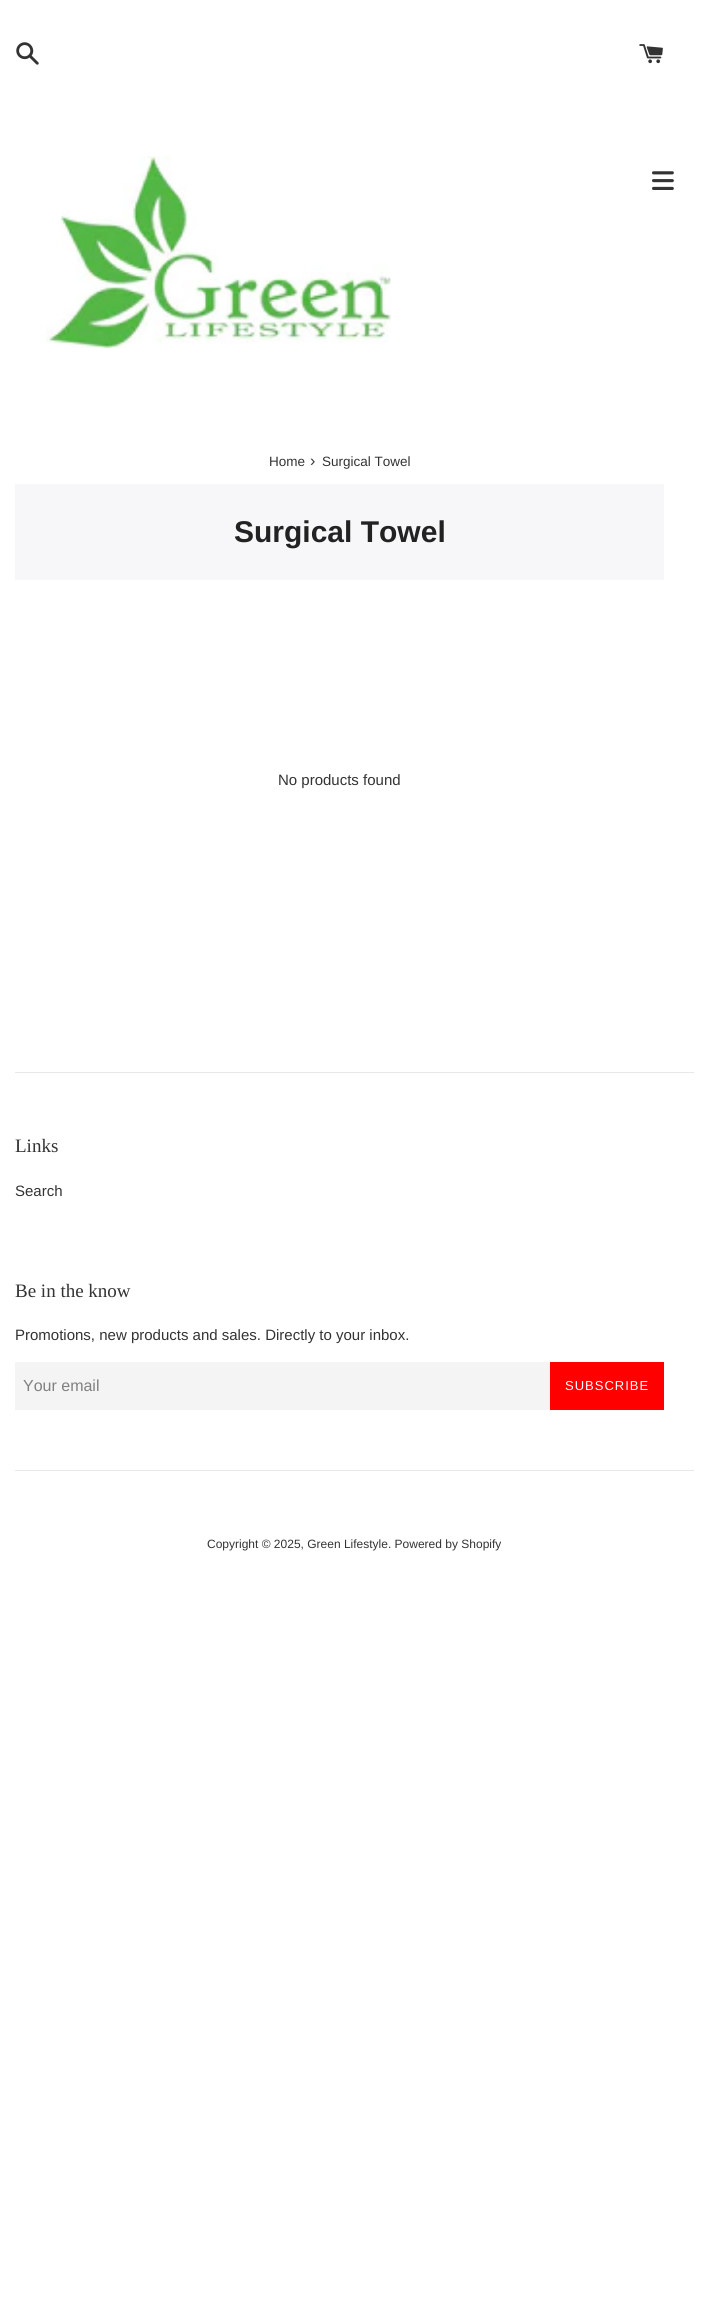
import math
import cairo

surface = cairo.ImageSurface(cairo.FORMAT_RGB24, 709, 2310)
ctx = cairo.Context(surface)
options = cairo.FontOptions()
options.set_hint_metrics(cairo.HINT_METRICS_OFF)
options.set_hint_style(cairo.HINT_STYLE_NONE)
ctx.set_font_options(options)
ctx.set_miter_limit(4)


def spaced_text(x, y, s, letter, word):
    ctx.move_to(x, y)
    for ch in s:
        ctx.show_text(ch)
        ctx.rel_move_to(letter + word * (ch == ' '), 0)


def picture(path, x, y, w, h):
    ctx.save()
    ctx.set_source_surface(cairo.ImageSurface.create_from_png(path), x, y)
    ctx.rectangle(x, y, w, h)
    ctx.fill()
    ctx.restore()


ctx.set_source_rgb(1, 1, 1)
ctx.paint()
picture("img1.png", 16, 42, 23, 23)
picture("img2.png", 639, 44, 24, 20)
picture("img3.png", 46, 156, 345, 192)
picture("img4.png", 652, 171, 22, 19)
ctx.select_font_face("Liberation Sans")
ctx.set_font_size(13.5)
ctx.set_source_rgb(0.2, 0.2, 0.2)
ctx.move_to(269, 466)
ctx.show_text("Home")
ctx.set_font_size(16)
ctx.move_to(310, 466)
ctx.show_text("›")
ctx.set_font_size(13.5)
ctx.move_to(322, 466)
ctx.show_text("Surgical Towel")
ctx.set_source_rgb(0.965, 0.965, 0.973)
ctx.rectangle(15, 484, 649, 96)
ctx.fill()
ctx.select_font_face("Liberation Sans", cairo.FONT_SLANT_NORMAL, cairo.FONT_WEIGHT_BOLD)
ctx.set_font_size(30)
ctx.set_source_rgb(0.133, 0.133, 0.133)
ctx.move_to(234, 542)
ctx.show_text("Surgical Towel")
ctx.select_font_face("Liberation Sans")
ctx.set_font_size(15)
ctx.set_source_rgb(0.2, 0.2, 0.2)
ctx.move_to(278, 785)
ctx.show_text("No products found")
ctx.set_source_rgb(0.91, 0.91, 0.91)
ctx.rectangle(15, 1072, 679, 1)
ctx.fill()
ctx.select_font_face("Liberation Serif")
ctx.set_font_size(19)
ctx.set_source_rgb(0.2, 0.2, 0.2)
ctx.move_to(15, 1152)
ctx.show_text("Links")
ctx.select_font_face("Liberation Sans")
ctx.set_font_size(15)
ctx.move_to(15, 1196)
ctx.show_text("Search")
ctx.select_font_face("Liberation Serif")
ctx.set_font_size(19)
ctx.move_to(15, 1297)
ctx.show_text("Be in the know")
ctx.select_font_face("Liberation Sans")
ctx.set_font_size(15)
ctx.move_to(15, 1340)
ctx.show_text("Promotions, new products and sales. Directly to your inbox.")
ctx.set_source_rgb(0.957, 0.957, 0.957)
ctx.rectangle(15, 1362, 535, 48)
ctx.fill()
ctx.set_font_size(16)
ctx.set_source_rgb(0.502, 0.502, 0.502)
ctx.move_to(23, 1391)
ctx.show_text("Your email")
ctx.set_source_rgb(1, 0, 0)
ctx.rectangle(550, 1362, 114, 48)
ctx.fill()
ctx.set_font_size(13)
ctx.set_source_rgb(1, 1, 1)
spaced_text(565, 1390, "SUBSCRIBE", 1, 0)
ctx.set_source_rgb(0.91, 0.91, 0.91)
ctx.rectangle(15, 1470, 679, 1)
ctx.fill()
ctx.set_font_size(12)
ctx.set_source_rgb(0.2, 0.2, 0.2)
ctx.move_to(207, 1548)
ctx.show_text("Copyright © 2025, Green Lifestyle. Powered by Shopify")
surface.write_to_png("page.png")
